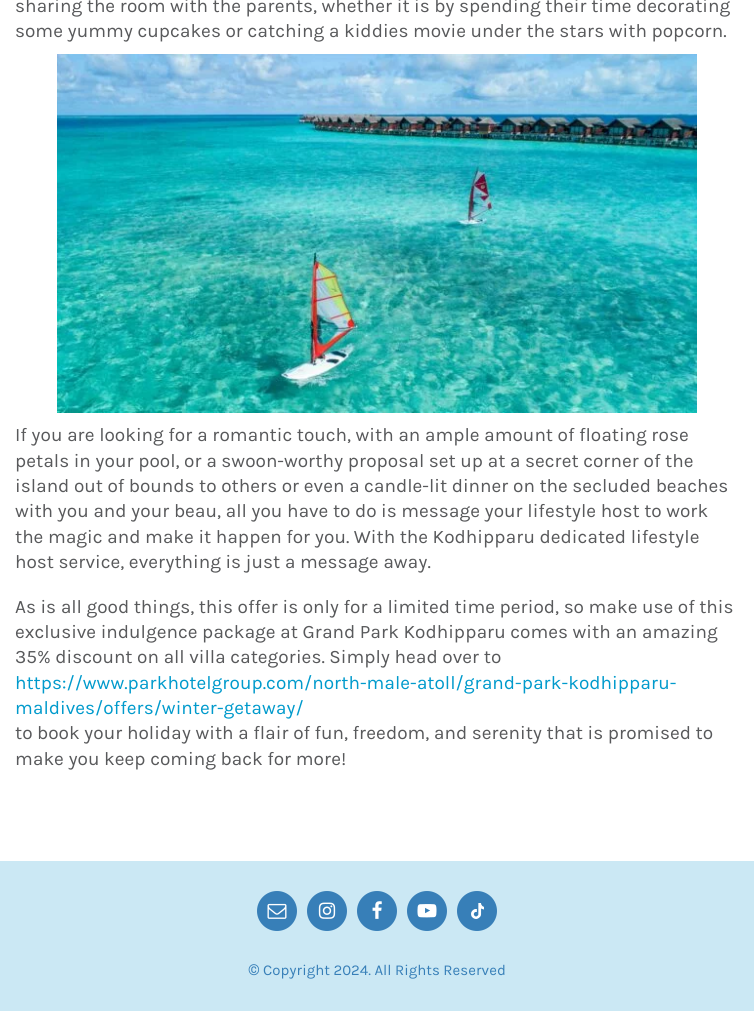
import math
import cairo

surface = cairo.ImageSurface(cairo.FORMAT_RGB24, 754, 1011)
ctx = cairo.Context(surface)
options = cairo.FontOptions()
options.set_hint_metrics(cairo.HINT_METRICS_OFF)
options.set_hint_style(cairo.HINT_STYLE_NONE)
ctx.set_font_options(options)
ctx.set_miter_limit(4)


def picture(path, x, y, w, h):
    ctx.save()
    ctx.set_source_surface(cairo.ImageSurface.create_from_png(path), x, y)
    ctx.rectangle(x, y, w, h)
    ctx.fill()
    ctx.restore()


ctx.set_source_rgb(1, 1, 1)
ctx.paint()
ctx.select_font_face("Karla")
ctx.set_font_size(19)
ctx.set_source_rgb(0.345, 0.349, 0.357)
ctx.move_to(15, 12)
ctx.show_text("sharing the room with the parents, whether it is by spending their time decorating")
ctx.move_to(15, 37)
ctx.show_text("some yummy cupcakes or catching a kiddies movie under the stars with popcorn.")
picture("img1.png", 57, 54, 640, 359)
ctx.move_to(15, 441)
ctx.show_text("If you are looking for a romantic touch, with an ample amount of floating rose")
ctx.move_to(15, 467)
ctx.show_text("petals in your pool, or a swoon-worthy proposal set up at a secret corner of the")
ctx.move_to(15, 492)
ctx.show_text("island out of bounds to others or even a candle-lit dinner on the secluded beaches")
ctx.move_to(15, 517)
ctx.show_text("with you and your beau, all you have to do is message your lifestyle host to work")
ctx.move_to(15, 543)
ctx.show_text("the magic and make it happen for you. With the Kodhipparu dedicated lifestyle")
ctx.move_to(15, 568)
ctx.show_text("host service, everything is just a message away.")
ctx.move_to(15, 613)
ctx.show_text("As is all good things, this offer is only for a limited time period, so make use of this")
ctx.move_to(15, 638)
ctx.show_text("exclusive indulgence package at Grand Park Kodhipparu comes with an amazing")
ctx.move_to(15, 663)
ctx.show_text("35% discount on all villa categories. Simply head over to")
ctx.set_source_rgb(0, 0.604, 0.8)
ctx.move_to(15, 689)
ctx.show_text("https://www.parkhotelgroup.com/north-male-atoll/grand-park-kodhipparu-")
ctx.move_to(15, 714)
ctx.show_text("maldives/offers/winter-getaway/")
ctx.set_source_rgb(0.345, 0.349, 0.357)
ctx.move_to(15, 739)
ctx.show_text("to book your holiday with a flair of fun, freedom, and serenity that is promised to")
ctx.move_to(15, 765)
ctx.show_text("make you keep coming back for more!")
ctx.set_source_rgb(0.796, 0.91, 0.957)
ctx.rectangle(0, 861, 754, 150)
ctx.fill()
ctx.set_source_rgb(0.216, 0.498, 0.722)
ctx.arc(277, 911, 20, 0, 2 * math.pi)
ctx.fill()
picture("img2.png", 267, 903, 20, 16)
ctx.arc(327, 911, 20, 0, 2 * math.pi)
ctx.fill()
picture("img3.png", 318, 902, 18, 17)
ctx.arc(377, 911, 20, 0, 2 * math.pi)
ctx.fill()
picture("img4.png", 372, 901, 10, 18)
ctx.arc(427, 911, 20, 0, 2 * math.pi)
ctx.fill()
picture("img5.png", 417, 904, 20, 14)
ctx.arc(477, 911, 20, 0, 2 * math.pi)
ctx.fill()
picture("img6.png", 471, 903, 13, 16)
ctx.select_font_face("Roboto")
ctx.set_font_size(15)
ctx.move_to(248, 975)
ctx.show_text("©")
ctx.select_font_face("Karla")
ctx.move_to(263, 975)
ctx.show_text("Copyright 2024. All Rights Reserved")
surface.write_to_png("page.png")
